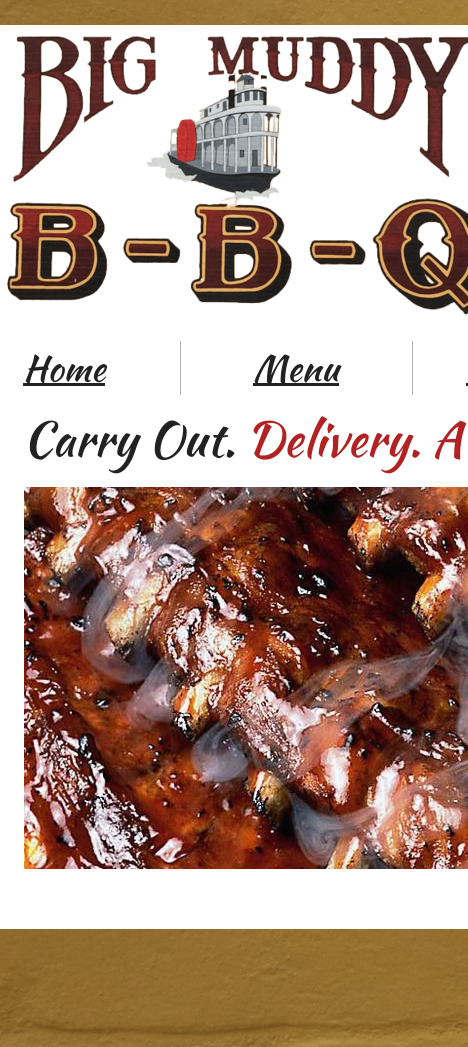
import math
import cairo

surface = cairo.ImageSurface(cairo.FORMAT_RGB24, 468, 1047)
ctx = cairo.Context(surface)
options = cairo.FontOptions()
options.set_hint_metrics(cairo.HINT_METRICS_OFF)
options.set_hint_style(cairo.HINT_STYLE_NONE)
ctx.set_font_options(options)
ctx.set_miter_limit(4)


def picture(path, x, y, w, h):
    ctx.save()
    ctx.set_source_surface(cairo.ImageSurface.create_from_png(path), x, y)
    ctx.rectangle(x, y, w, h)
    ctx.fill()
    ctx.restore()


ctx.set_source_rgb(1, 1, 1)
ctx.paint()
picture("img1.png", 0, 0, 468, 1047)
ctx.set_source_rgb(1, 1, 1)
ctx.rectangle(0, 25, 468, 904)
ctx.fill()
picture("img2.png", 7, 36, 461, 279)
ctx.set_source_rgb(0.682, 0.682, 0.682)
ctx.rectangle(180, 341, 1, 54)
ctx.fill()
ctx.set_source_rgb(0.133, 0.133, 0.133)
ctx.rectangle(23, 383, 82, 3)
ctx.fill()
ctx.select_font_face("Kaushan Script")
ctx.set_font_size(36)
ctx.move_to(23, 381)
ctx.show_text("Home")
ctx.set_source_rgb(0.682, 0.682, 0.682)
ctx.rectangle(412, 341, 1, 54)
ctx.fill()
ctx.set_source_rgb(0.133, 0.133, 0.133)
ctx.rectangle(253, 383, 86, 3)
ctx.fill()
ctx.move_to(253, 381)
ctx.show_text("Menu")
ctx.rectangle(466, 383, 2, 3)
ctx.fill()
ctx.set_font_size(48)
ctx.move_to(23, 456)
ctx.show_text("Carry Out.")
ctx.set_source_rgb(0.698, 0.133, 0.133)
ctx.move_to(246, 456)
ctx.show_text("Delivery. A")
picture("img3.png", 24, 487, 444, 382)
surface.write_to_png("page.png")
